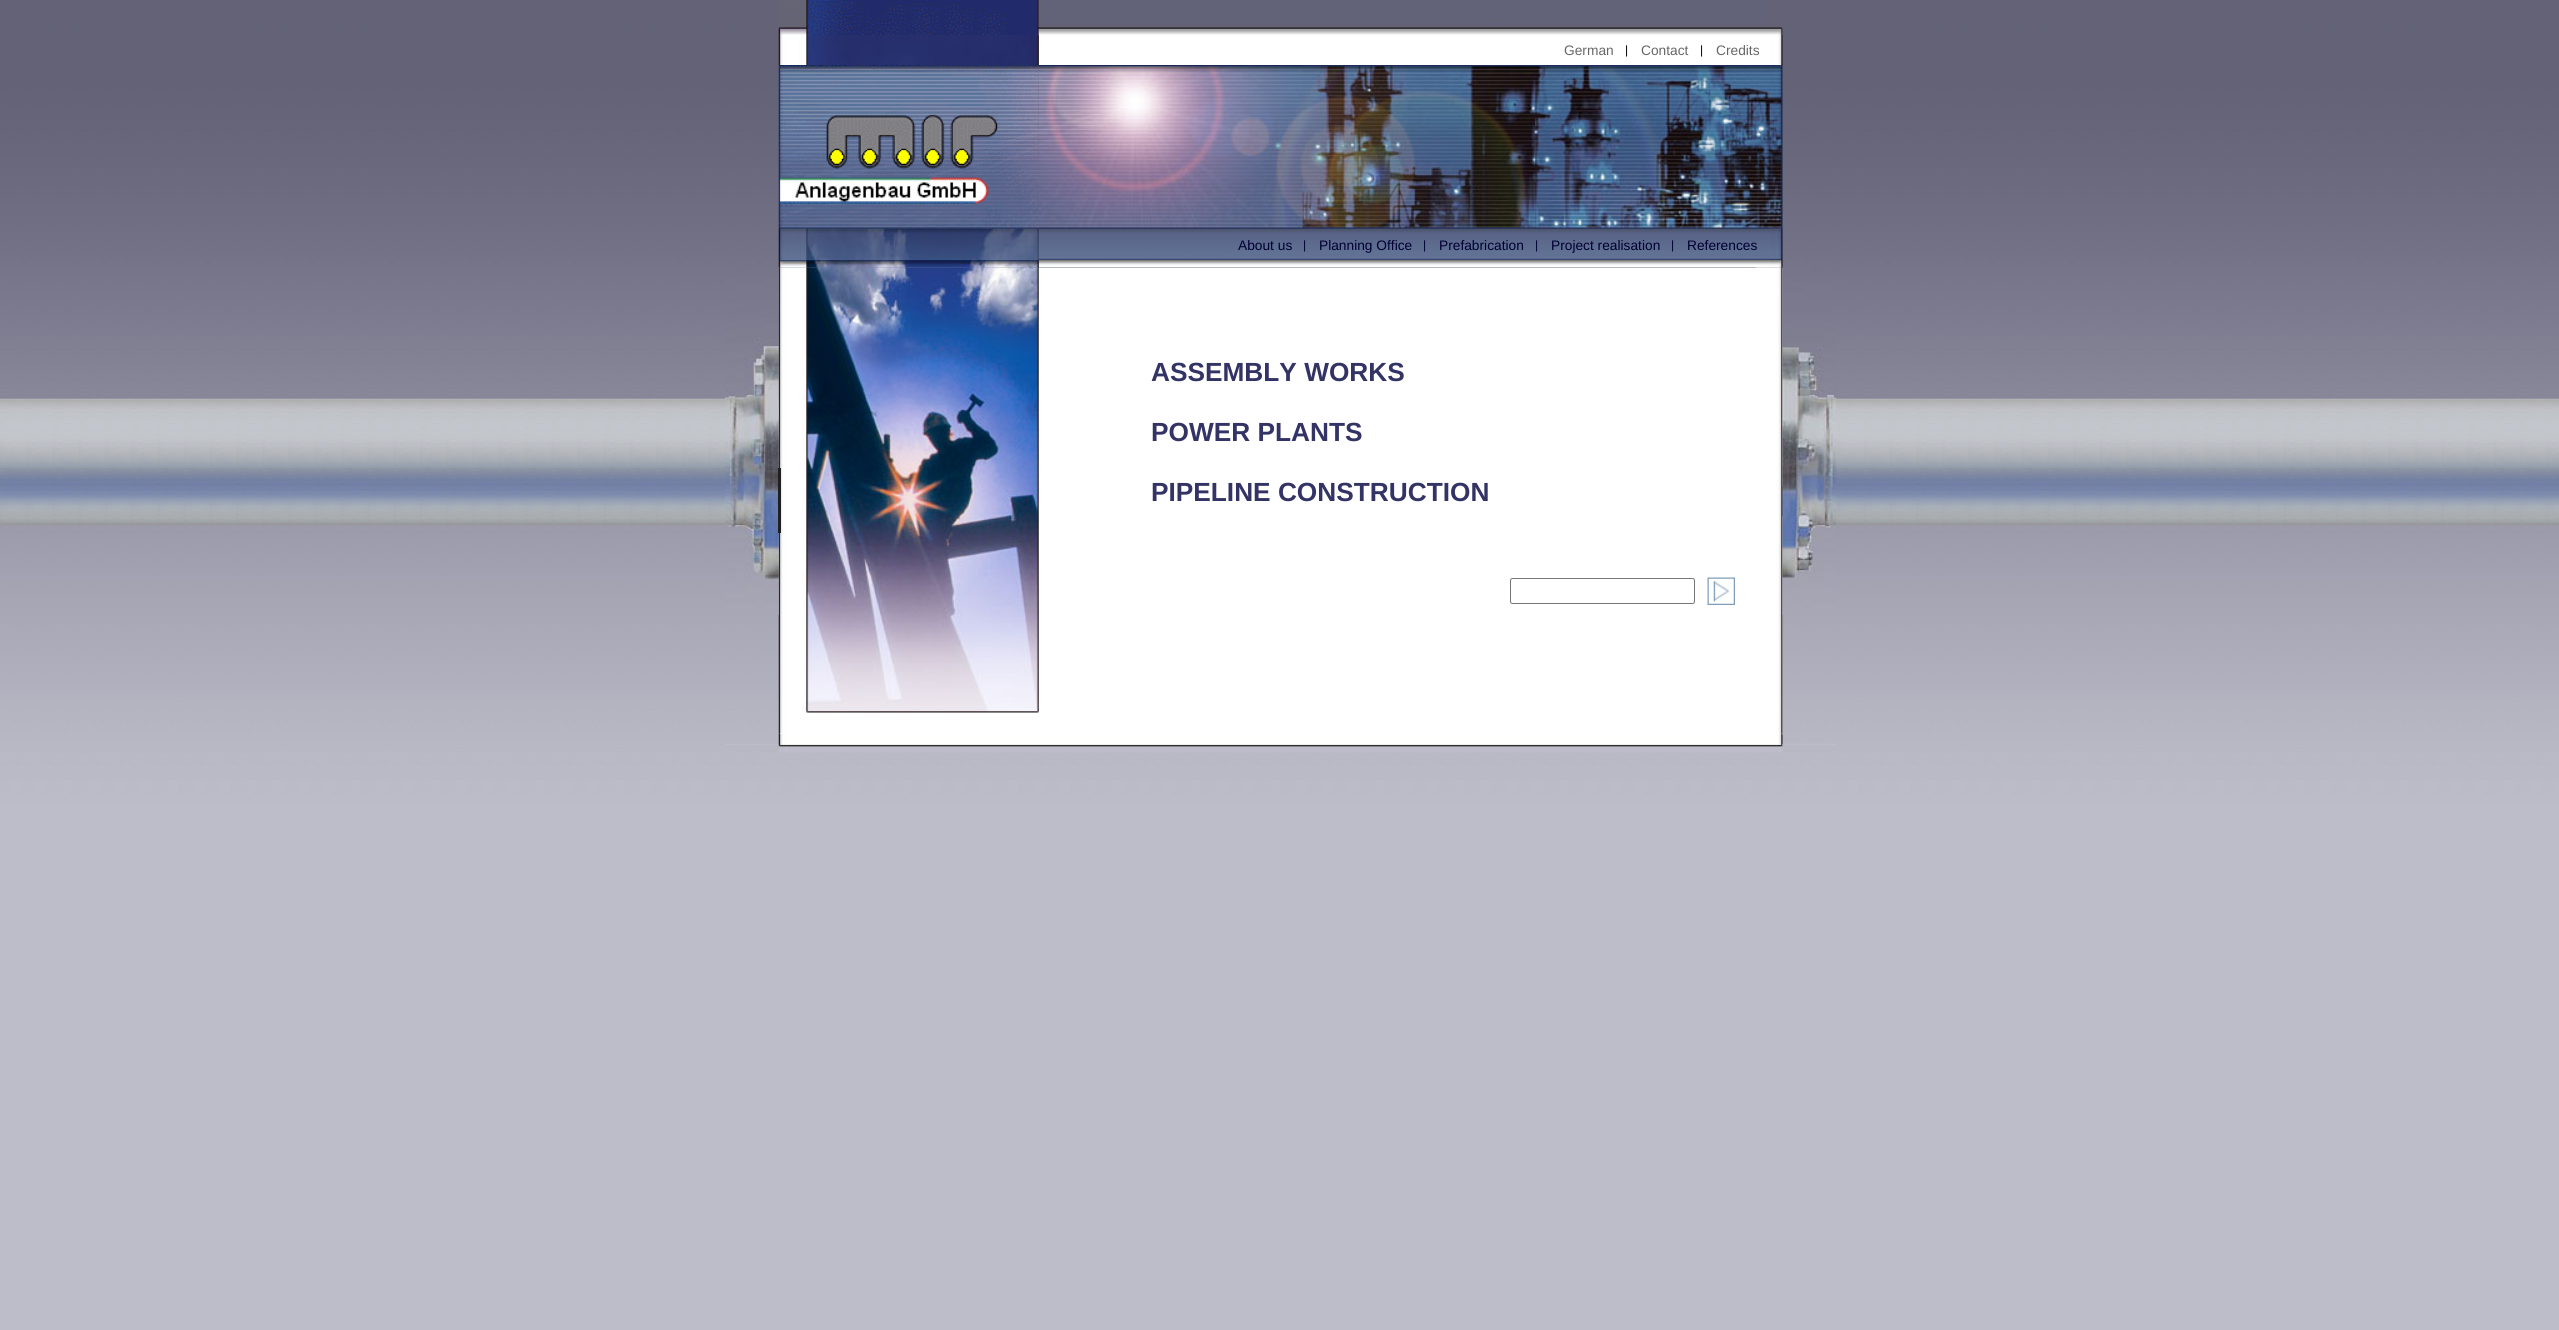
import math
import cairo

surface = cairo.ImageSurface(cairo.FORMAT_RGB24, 2559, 1330)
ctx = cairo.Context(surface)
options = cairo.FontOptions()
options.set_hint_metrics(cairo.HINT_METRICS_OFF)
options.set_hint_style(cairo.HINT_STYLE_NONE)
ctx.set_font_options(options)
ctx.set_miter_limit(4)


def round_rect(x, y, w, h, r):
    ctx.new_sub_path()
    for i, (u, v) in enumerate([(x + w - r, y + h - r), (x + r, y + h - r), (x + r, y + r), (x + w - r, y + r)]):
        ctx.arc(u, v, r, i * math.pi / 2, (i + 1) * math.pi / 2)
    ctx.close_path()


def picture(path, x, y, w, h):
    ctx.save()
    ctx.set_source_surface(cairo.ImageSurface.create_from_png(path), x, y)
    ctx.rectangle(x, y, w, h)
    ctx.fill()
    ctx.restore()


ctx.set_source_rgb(1, 1, 1)
ctx.paint()
picture("img1.png", 0, 0, 2559, 1330)
picture("img2.png", 778, 0, 261, 35)
picture("img3.png", 1038, 0, 732, 35)
picture("img4.png", 1770, 23, 13, 12)
ctx.set_source_rgba(0.384, 0.384, 0.471, 0.5)
ctx.rectangle(1782, 27, 1, 8)
ctx.fill()
picture("img5.png", 778, 35, 261, 30)
ctx.set_source_rgb(1, 1, 1)
ctx.rectangle(1039, 35, 731, 30)
ctx.fill()
ctx.select_font_face("Liberation Sans")
ctx.set_font_size(13.75)
ctx.set_source_rgb(0.4, 0.4, 0.4)
ctx.move_to(1564, 55)
ctx.show_text("German")
ctx.set_font_size(12)
ctx.set_source_rgb(0, 0, 0)
ctx.move_to(1625, 54)
ctx.show_text("|")
ctx.set_font_size(13.75)
ctx.set_source_rgb(0.4, 0.4, 0.4)
ctx.move_to(1641, 55)
ctx.show_text("Contact")
ctx.set_font_size(12)
ctx.set_source_rgb(0, 0, 0)
ctx.move_to(1700, 54)
ctx.show_text("|")
ctx.set_font_size(13.75)
ctx.set_source_rgb(0.4, 0.4, 0.4)
ctx.move_to(1716, 55)
ctx.show_text("Credits")
picture("img6.png", 1770, 35, 13, 30)
picture("img11.png", 1038, 228, 732, 40)
picture("img7.png", 778, 65, 261, 164)
picture("img8.png", 1038, 65, 732, 164)
picture("img9.png", 1770, 65, 13, 164)
ctx.set_source_rgb(1, 1, 1)
ctx.rectangle(779, 268, 1004, 467)
ctx.fill()
picture("img14.png", 778, 267, 25, 467)
picture("img10.png", 778, 228, 261, 40)
ctx.set_source_rgb(0, 0, 0.2)
ctx.move_to(1238, 250)
ctx.show_text("About us")
ctx.set_font_size(12)
ctx.move_to(1303, 249)
ctx.show_text("|")
ctx.set_font_size(13.75)
ctx.move_to(1319, 250)
ctx.show_text("Planning Office")
ctx.set_font_size(12)
ctx.move_to(1423, 249)
ctx.show_text("|")
ctx.set_font_size(13.75)
ctx.move_to(1439, 250)
ctx.show_text("Prefabrication")
ctx.set_font_size(12)
ctx.move_to(1535, 249)
ctx.show_text("|")
ctx.set_font_size(13.75)
ctx.move_to(1551, 250)
ctx.show_text("Project realisation")
ctx.set_font_size(12)
ctx.move_to(1671, 249)
ctx.show_text("|")
ctx.set_font_size(13.75)
ctx.move_to(1687, 250)
ctx.show_text("References")
picture("img17.png", 1756, 267, 27, 467)
picture("img12.png", 1770, 228, 13, 40)
picture("img13.png", 725, 267, 54, 348)
ctx.set_source_rgb(0.125, 0.125, 0.125)
ctx.rectangle(778, 468, 3, 65)
ctx.fill()
picture("img15.png", 802, 267, 237, 446)
ctx.select_font_face("Liberation Sans", cairo.FONT_SLANT_NORMAL, cairo.FONT_WEIGHT_BOLD)
ctx.set_font_size(26.25)
ctx.set_source_rgb(0.2, 0.2, 0.4)
ctx.move_to(1151, 381)
ctx.show_text("ASSEMBLY WORKS")
ctx.move_to(1151, 441)
ctx.show_text("POWER PLANTS")
ctx.move_to(1151, 501)
ctx.show_text("PIPELINE CONSTRUCTION")
round_rect(1510.5, 578.5, 184, 25, 2)
ctx.set_source_rgb(0.463, 0.463, 0.463)
ctx.set_line_width(1)
ctx.stroke()
picture("img16.png", 1707, 577, 28, 28)
picture("img18.png", 1782, 486, 1, 31)
picture("img19.png", 778, 733, 5, 2)
picture("img20.png", 1779, 733, 4, 2)
picture("img21.png", 1782, 267, 55, 348)
picture("img22.png", 725, 744, 54, 1)
picture("img23.png", 778, 735, 1005, 18)
picture("img24.png", 1782, 743, 54, 2)
surface.write_to_png("page.png")
